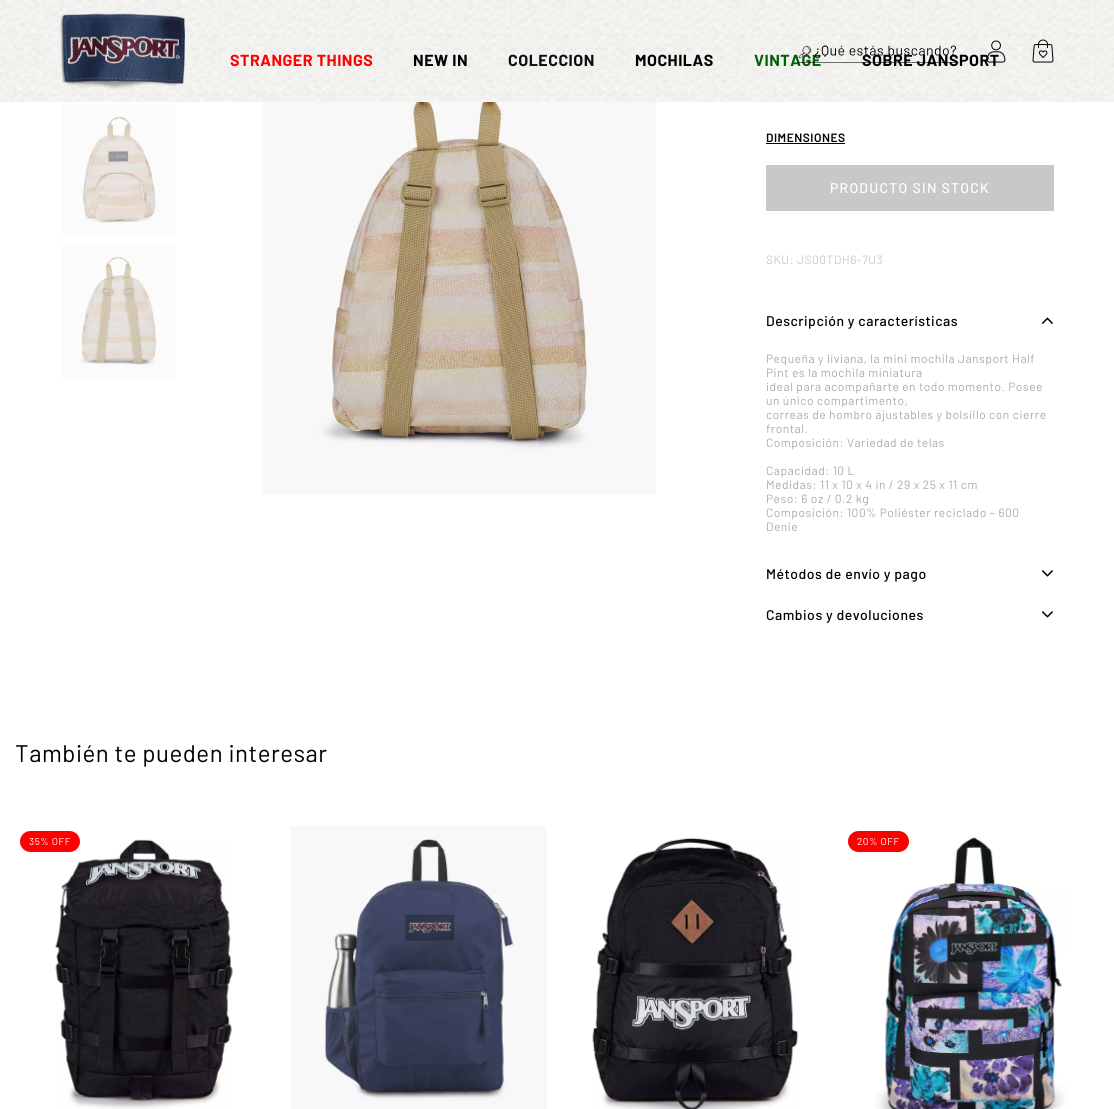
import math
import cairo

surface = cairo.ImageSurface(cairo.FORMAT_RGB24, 1114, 1109)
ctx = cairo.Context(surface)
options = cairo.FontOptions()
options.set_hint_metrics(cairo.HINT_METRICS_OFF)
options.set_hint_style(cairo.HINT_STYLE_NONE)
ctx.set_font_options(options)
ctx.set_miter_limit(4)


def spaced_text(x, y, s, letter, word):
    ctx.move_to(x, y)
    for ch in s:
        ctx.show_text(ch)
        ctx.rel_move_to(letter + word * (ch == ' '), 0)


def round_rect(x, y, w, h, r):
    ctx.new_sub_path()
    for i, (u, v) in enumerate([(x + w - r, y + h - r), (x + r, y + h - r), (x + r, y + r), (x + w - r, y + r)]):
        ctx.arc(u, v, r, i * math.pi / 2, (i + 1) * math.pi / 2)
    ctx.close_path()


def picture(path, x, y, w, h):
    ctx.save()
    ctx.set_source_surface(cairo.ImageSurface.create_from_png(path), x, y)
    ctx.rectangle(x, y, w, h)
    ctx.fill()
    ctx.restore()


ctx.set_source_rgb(1, 1, 1)
ctx.paint()
picture("img1.png", 0, 0, 1114, 102)
picture("img2.png", 60, 13, 126, 76)
ctx.select_font_face("Barlow", cairo.FONT_SLANT_NORMAL, cairo.FONT_WEIGHT_BOLD)
ctx.set_font_size(16)
ctx.set_source_rgb(0.008, 0.373, 0.031)
spaced_text(754, 66, "VINTAGE", 0.5, 0)
ctx.set_source_rgb(0, 0, 0)
spaced_text(862, 66, "SOBRE JANSPORT", 0.5, 0)
picture("img3.png", 798, 45, 161, 18)
picture("img4.png", 986, 40, 20, 23)
picture("img5.png", 1032, 39, 22, 24)
ctx.set_source_rgb(1, 0, 0)
spaced_text(230, 66, "STRANGER THINGS", 0.5, 0)
ctx.set_source_rgb(0, 0, 0)
spaced_text(413, 66, "NEW IN", 0.5, 0)
ctx.set_source_rgb(0.051, 0.051, 0.051)
spaced_text(508, 66, "COLECCION", 0.5, 0)
ctx.set_source_rgb(0, 0, 0)
spaced_text(635, 66, "MOCHILAS", 0.5, 0)
picture("img6.png", 62, 105, 114, 132)
picture("img7.png", 62, 246, 114, 133)
picture("img8.png", 263, 102, 393, 392)
ctx.select_font_face("Barlow SemiBold")
ctx.set_font_size(12)
spaced_text(766, 142, "DIMENSIONES", 0.5, 0)
ctx.rectangle(766, 143, 79, 1)
ctx.fill()
ctx.set_source_rgb(0.784, 0.784, 0.784)
ctx.rectangle(766, 165, 288, 46)
ctx.fill()
ctx.select_font_face("Barlow Medium")
ctx.set_font_size(14)
ctx.set_source_rgb(1, 1, 1)
spaced_text(830, 193, "PRODUCTO SIN STOCK", 1.25, 0)
ctx.select_font_face("Barlow")
ctx.set_font_size(12)
ctx.set_source_rgb(0.784, 0.784, 0.784)
spaced_text(766, 264, "SKU: JS00TDH6-7U3", 0.5, 0)
ctx.select_font_face("Barlow Medium")
ctx.set_font_size(14)
ctx.set_source_rgb(0, 0, 0)
spaced_text(766, 326, "Descripción y características", 0.5, 0)
picture("img9.png", 1041, 317, 12, 7)
ctx.select_font_face("Barlow")
ctx.set_font_size(12)
ctx.set_source_rgb(0.667, 0.667, 0.667)
spaced_text(766, 363, "Pequeña y liviana, la mini mochila Jansport Half", 0.5, 0)
spaced_text(766, 377, "Pint es la mochila miniatura", 0.5, 0)
spaced_text(766, 391, "ideal para acompañarte en todo momento. Posee", 0.5, 0)
spaced_text(766, 405, "un único compartimento,", 0.5, 0)
spaced_text(766, 419, "correas de hombro ajustables y bolsillo con cierre", 0.5, 0)
spaced_text(766, 433, "frontal.", 0.5, 0)
spaced_text(766, 447, "Composición: Variedad de telas", 0.5, 0)
spaced_text(766, 475, "Capacidad: 10 L", 0.5, 0)
spaced_text(766, 489, "Medidas: 11 x 10 x 4 in / 29 x 25 x 11 cm", 0.5, 0)
spaced_text(766, 503, "Peso: 6 oz / 0.2 kg", 0.5, 0)
spaced_text(766, 517, "Composición: 100% Poliéster reciclado – 600", 0.5, 0)
spaced_text(766, 531, "Denie", 0.5, 0)
ctx.select_font_face("Barlow Medium")
ctx.set_font_size(14)
ctx.set_source_rgb(0, 0, 0)
spaced_text(766, 579, "Métodos de envío y pago", 0.5, 0)
picture("img10.png", 1041, 570, 12, 7)
spaced_text(766, 620, "Cambios y devoluciones", 0.5, 0)
picture("img10.png", 1041, 611, 12, 7)
ctx.select_font_face("Barlow")
ctx.set_font_size(24)
spaced_text(15, 762, "También te pueden interesar", 0.5, 0)
picture("img11.png", 55, 839, 178, 270)
ctx.set_source_rgb(1, 0, 0)
round_rect(20, 831, 60, 21, 10.5)
ctx.fill()
ctx.set_font_size(10)
ctx.set_source_rgb(1, 1, 1)
spaced_text(29, 845, "35% OFF", 0.5, 0)
picture("img12.png", 291, 826, 256, 283)
picture("img13.png", 592, 837, 207, 272)
picture("img14.png", 875, 837, 193, 272)
ctx.set_source_rgb(1, 0, 0)
round_rect(848, 831, 61, 21, 10.5)
ctx.fill()
ctx.set_source_rgb(1, 1, 1)
spaced_text(857, 845, "20% OFF", 0.5, 0)
surface.write_to_png("page.png")
